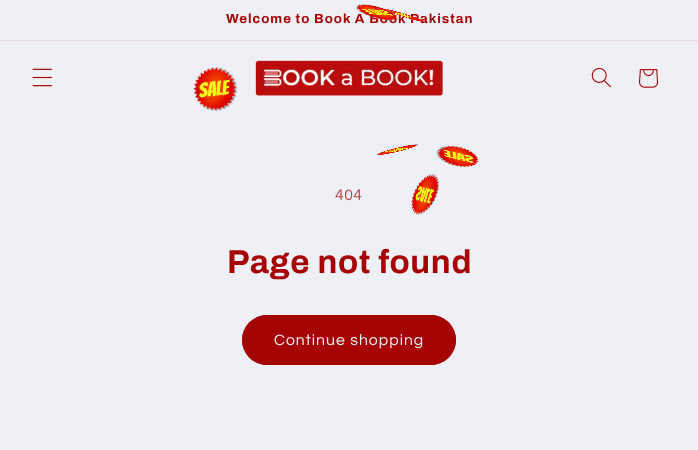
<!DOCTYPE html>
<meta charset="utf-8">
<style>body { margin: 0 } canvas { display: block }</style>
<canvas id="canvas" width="698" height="450"></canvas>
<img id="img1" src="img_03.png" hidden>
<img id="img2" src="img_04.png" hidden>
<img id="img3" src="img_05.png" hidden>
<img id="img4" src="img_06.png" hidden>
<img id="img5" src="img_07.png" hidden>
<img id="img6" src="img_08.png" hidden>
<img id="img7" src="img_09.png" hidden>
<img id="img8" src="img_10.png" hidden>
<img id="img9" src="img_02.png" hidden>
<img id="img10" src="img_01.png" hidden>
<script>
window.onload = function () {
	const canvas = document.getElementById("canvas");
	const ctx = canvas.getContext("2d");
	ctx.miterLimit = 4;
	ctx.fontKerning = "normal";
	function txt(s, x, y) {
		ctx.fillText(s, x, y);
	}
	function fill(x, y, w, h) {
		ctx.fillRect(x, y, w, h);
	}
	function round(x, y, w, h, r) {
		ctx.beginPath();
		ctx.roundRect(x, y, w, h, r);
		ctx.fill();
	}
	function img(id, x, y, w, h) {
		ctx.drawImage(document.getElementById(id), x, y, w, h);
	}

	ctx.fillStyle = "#EFF0F5";
	fill(0, 0, 698, 450);
	img("img1", 193, 67, 45, 45);
	img("img2", 375, 144, 43, 12);
	img("img3", 436, 145, 43, 23);
	img("img4", 411, 173, 29, 42);
	ctx.fillStyle = "#E9DDE2";
	fill(0, 40, 698, 1);
	img("img5", 32, 68, 20, 19);
	img("img6", 255, 60, 188, 36);
	img("img7", 591, 67, 20, 21);
	img("img8", 639, 69, 20, 19);
	ctx.fillStyle = "#A60404";
	round(242, 315, 214, 50, 25);
	ctx.beginPath();
	ctx.roundRect(242.5, 315.5, 213, 49, 24.5);
	ctx.strokeStyle = "#A60404";
	ctx.stroke();
	ctx.letterSpacing = "1.05px";
	ctx.font = "bold 13.25px Archivo";
	txt("Welcome to Book A Book Pakistan", 226, 23);
	img("img9", 383, 8, 42, 14);
	img("img10", 356, 4, 43, 17);
	ctx.letterSpacing = "0.5px";
	ctx.font = "15.75px Questrial";
	ctx.fillStyle = "#B83F40";
	txt("404", 335, 200);
	ctx.letterSpacing = "0.7px";
	ctx.font = "bold 33px Archivo";
	ctx.fillStyle = "#A60404";
	txt("Page not found", 227, 273);
	ctx.letterSpacing = "1.05px";
	ctx.font = "15.75px Questrial";
	ctx.fillStyle = "#EFF0F5";
	txt("Continue shopping", 274, 345);
};
</script>
